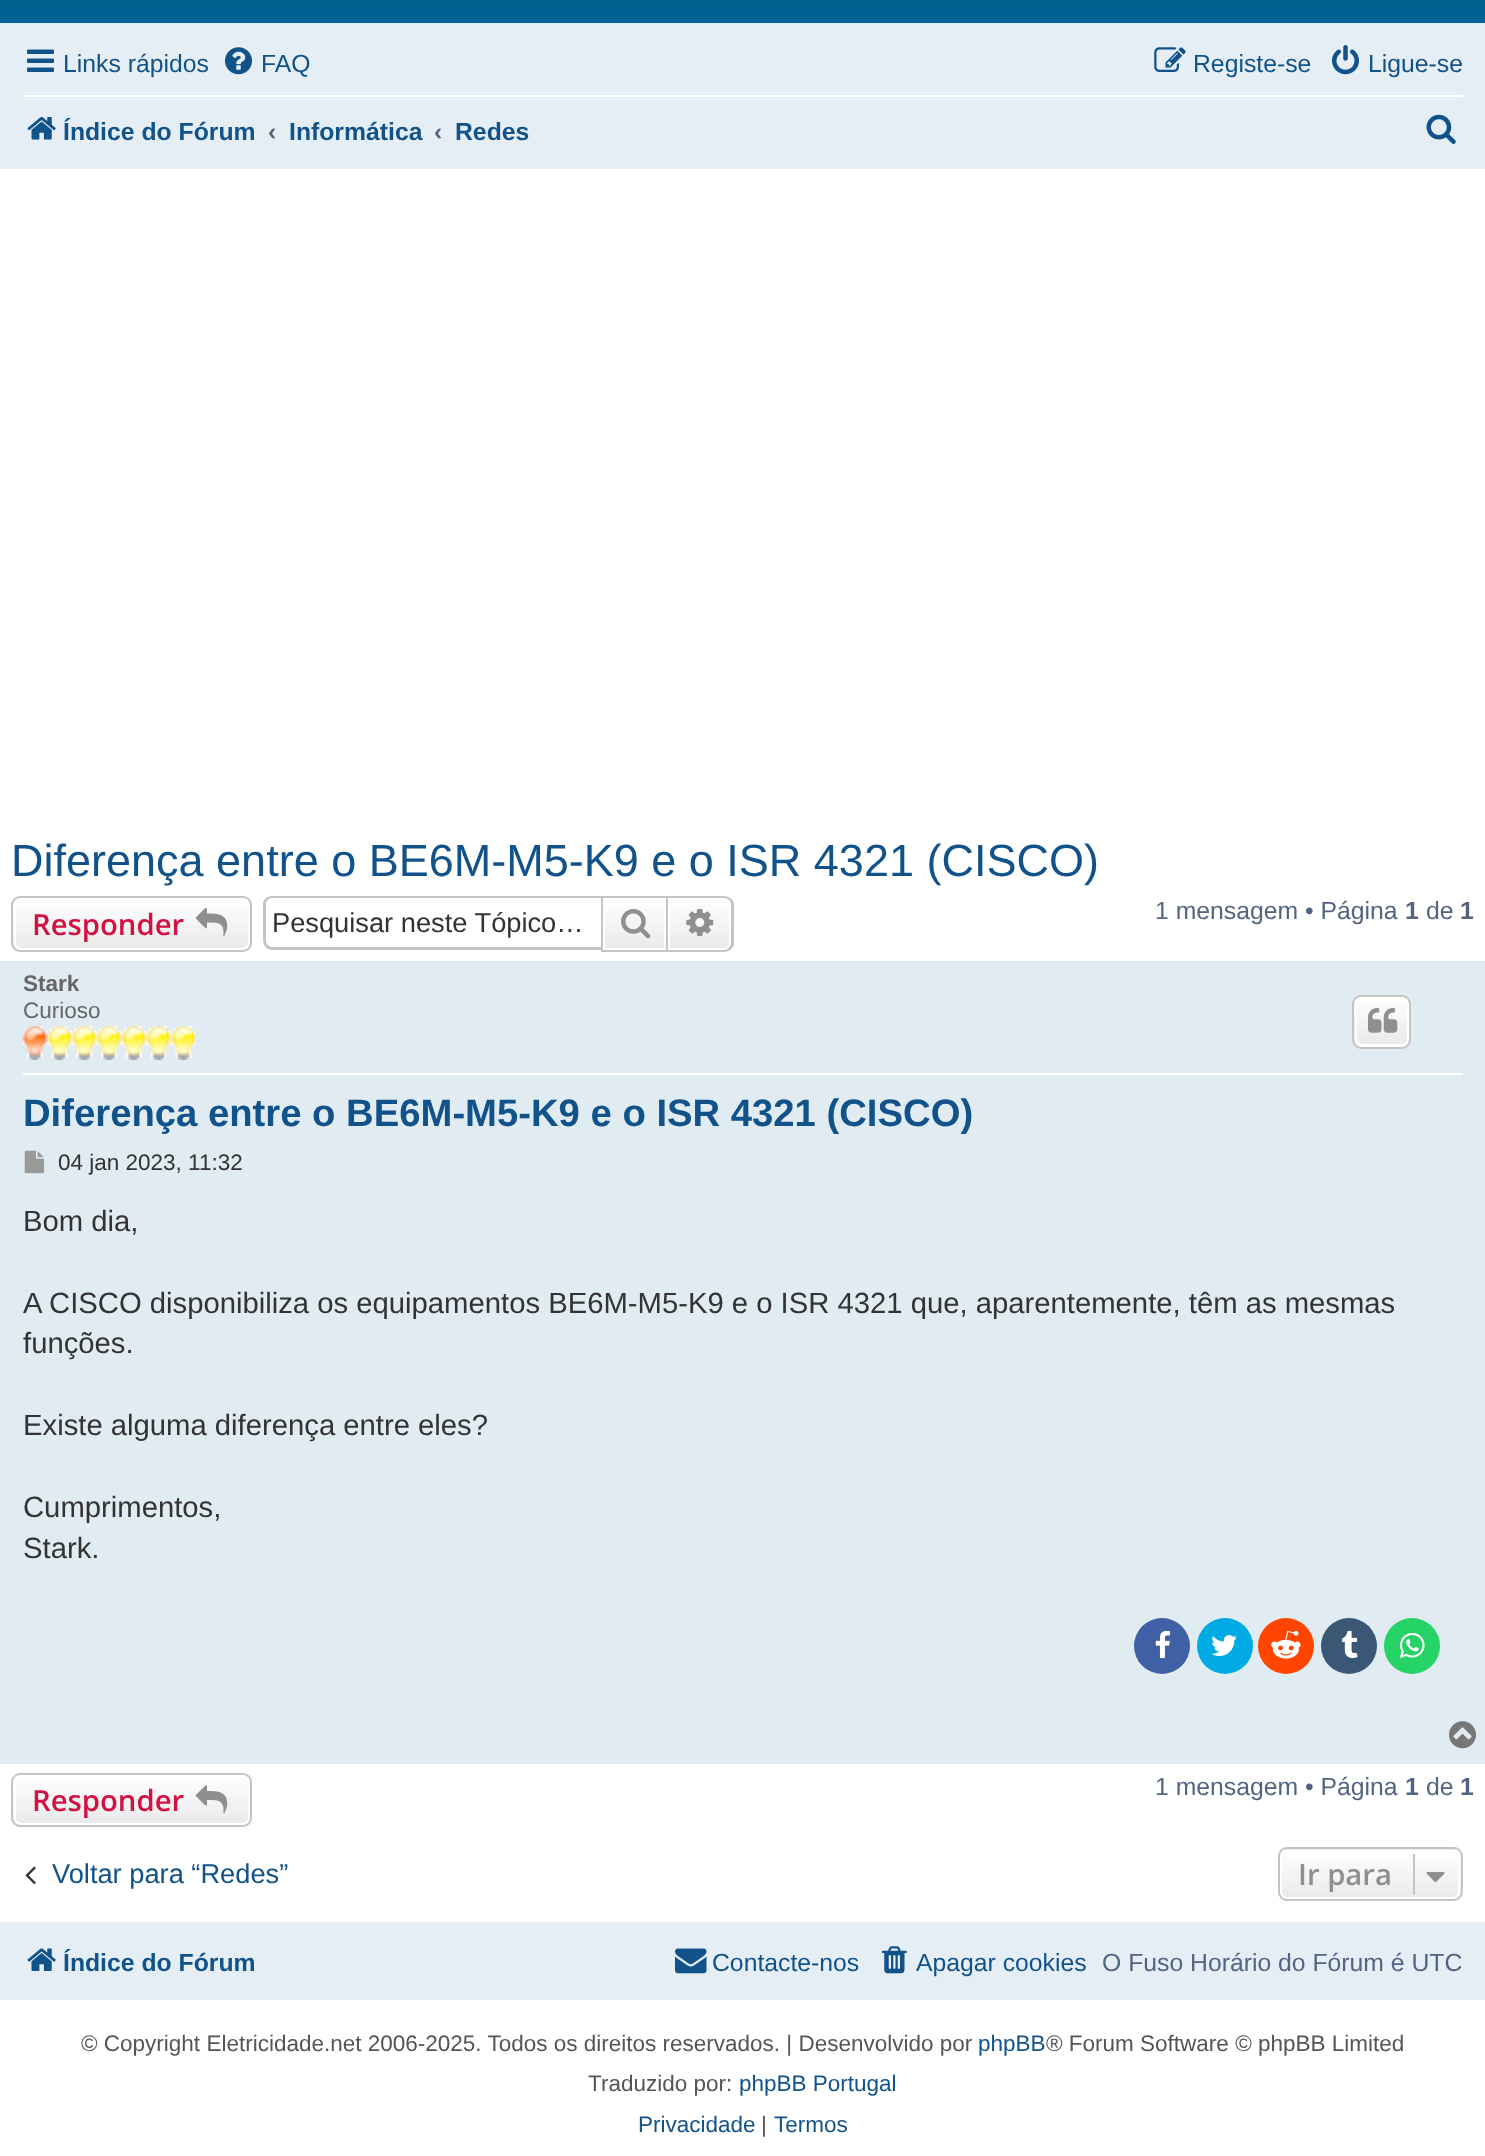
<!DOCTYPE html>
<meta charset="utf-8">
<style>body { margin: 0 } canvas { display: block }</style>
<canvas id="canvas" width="1485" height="2156"></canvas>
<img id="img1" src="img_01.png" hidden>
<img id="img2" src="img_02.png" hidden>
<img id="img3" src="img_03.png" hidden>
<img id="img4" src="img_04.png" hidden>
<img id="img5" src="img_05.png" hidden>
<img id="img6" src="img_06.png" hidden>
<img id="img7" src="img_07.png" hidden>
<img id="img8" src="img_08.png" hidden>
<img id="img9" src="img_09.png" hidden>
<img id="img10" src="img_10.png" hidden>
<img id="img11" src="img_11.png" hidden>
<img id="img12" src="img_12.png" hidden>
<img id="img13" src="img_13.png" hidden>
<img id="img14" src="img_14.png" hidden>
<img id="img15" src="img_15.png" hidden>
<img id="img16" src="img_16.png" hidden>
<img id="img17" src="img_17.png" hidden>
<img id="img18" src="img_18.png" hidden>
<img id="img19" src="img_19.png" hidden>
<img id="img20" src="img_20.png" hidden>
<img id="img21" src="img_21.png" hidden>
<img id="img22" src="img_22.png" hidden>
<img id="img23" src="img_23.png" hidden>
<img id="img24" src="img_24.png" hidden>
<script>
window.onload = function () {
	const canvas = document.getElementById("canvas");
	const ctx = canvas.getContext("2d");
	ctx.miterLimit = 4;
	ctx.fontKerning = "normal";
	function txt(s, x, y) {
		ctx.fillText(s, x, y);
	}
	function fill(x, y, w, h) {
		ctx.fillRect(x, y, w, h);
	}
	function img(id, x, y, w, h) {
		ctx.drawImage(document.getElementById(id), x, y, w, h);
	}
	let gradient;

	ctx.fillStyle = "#FFFFFF";
	fill(0, 0, 1485, 2156);
	gradient = ctx.createLinearGradient(743, -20, 743, 187);
	gradient.addColorStop(0, "#003F5E");
	gradient.addColorStop(0.02, "#005C8A");
	gradient.addColorStop(1, "#0084C4");
	ctx.fillStyle = gradient;
	fill(0, 0, 1485, 23);
	ctx.fillStyle = "#E5EEF5";
	fill(0, 23, 1485, 146);
	img("img1", 27, 49, 27, 23);
	img("img2", 225, 47, 27, 28);
	img("img3", 1154, 47, 32, 25);
	img("img4", 1332, 45, 27, 30);
	ctx.fillStyle = "#FFFFFF";
	fill(23, 95, 1440, 2);
	img("img5", 27, 117, 29, 23);
	img("img6", 1426, 114, 30, 30);
	ctx.save();
	ctx.beginPath();
	ctx.roundRect(11, 896, 241, 56, 9);
	ctx.clip();
	gradient = ctx.createLinearGradient(132, 898, 132, 950);
	gradient.addColorStop(0, "#FFFFFF");
	gradient.addColorStop(1, "#E9E9E9");
	ctx.fillStyle = gradient;
	fill(11, 898, 241, 52);
	ctx.restore();
	ctx.beginPath();
	ctx.roundRect(15, 899, 234, 50, 6);
	ctx.strokeStyle = "#FFFFFF";
	ctx.lineWidth = 2;
	ctx.stroke();
	ctx.beginPath();
	ctx.roundRect(12, 897, 239, 54, 8);
	ctx.strokeStyle = "#C7C3BF";
	ctx.stroke();
	img("img7", 195, 907, 33, 29);
	ctx.fillStyle = "#C7C3BF";
	ctx.beginPath();
	ctx.moveTo(272, 896);
	ctx.lineTo(601, 896);
	ctx.lineTo(601, 950);
	ctx.lineTo(272, 950);
	ctx.bezierCurveTo(267, 950, 263, 945, 263, 940);
	ctx.lineTo(263, 904);
	ctx.bezierCurveTo(263, 900, 267, 896, 272, 896);
	ctx.closePath();
	ctx.moveTo(272, 898);
	ctx.lineTo(601, 898);
	ctx.lineTo(601, 947);
	ctx.lineTo(272, 947);
	ctx.bezierCurveTo(269, 947, 266, 944, 266, 940);
	ctx.lineTo(266, 904);
	ctx.bezierCurveTo(266, 901, 269, 898, 272, 898);
	ctx.closePath();
	ctx.fill("evenodd");
	gradient = ctx.createLinearGradient(635, 898, 635, 950);
	gradient.addColorStop(0, "#FFFFFF");
	gradient.addColorStop(1, "#E9E9E9");
	ctx.fillStyle = gradient;
	fill(605, 904, 59, 44);
	ctx.strokeRect(602, 897, 65, 54);
	img("img8", 621, 909, 30, 30);
	gradient = ctx.createLinearGradient(700, 898, 700, 950);
	gradient.addColorStop(0, "#FFFFFF");
	gradient.addColorStop(1, "#E9E9E9");
	ctx.fillStyle = gradient;
	ctx.beginPath();
	ctx.roundRect(669, 899, 61, 50, [0, 6, 6, 0]);
	ctx.fill();
	ctx.strokeStyle = "#FFFFFF";
	ctx.stroke();
	ctx.fillStyle = "#C7C3BF";
	ctx.beginPath();
	ctx.moveTo(668, 896);
	ctx.lineTo(724, 896);
	ctx.bezierCurveTo(729, 896, 734, 900, 734, 904);
	ctx.lineTo(734, 943);
	ctx.bezierCurveTo(734, 948, 729, 952, 724, 952);
	ctx.lineTo(668, 952);
	ctx.closePath();
	ctx.moveTo(668, 898);
	ctx.lineTo(724, 898);
	ctx.bezierCurveTo(728, 898, 731, 901, 731, 904);
	ctx.lineTo(731, 943);
	ctx.bezierCurveTo(731, 946, 728, 950, 724, 950);
	ctx.lineTo(668, 950);
	ctx.closePath();
	ctx.fill("evenodd");
	img("img9", 686, 909, 28, 27);
	ctx.fillStyle = "#E1EBF2";
	fill(0, 961, 1485, 803);
	ctx.fillStyle = "#FFFFFF";
	fill(23, 1073, 1440, 2);
	img("img10", 22, 1026, 174, 34);
	ctx.save();
	ctx.beginPath();
	ctx.roundRect(1352, 995, 59, 54, 9);
	ctx.clip();
	gradient = ctx.createLinearGradient(1382, 997, 1382, 1046);
	gradient.addColorStop(0, "#FFFFFF");
	gradient.addColorStop(1, "#E9E9E9");
	ctx.fillStyle = gradient;
	fill(1352, 997, 59, 49);
	gradient = ctx.createLinearGradient(1382, 1046, 1382, 1096);
	gradient.addColorStop(0, "#FFFFFF");
	gradient.addColorStop(1, "#E9E9E9");
	ctx.fillStyle = gradient;
	fill(1352, 1046, 59, 3);
	ctx.restore();
	ctx.beginPath();
	ctx.roundRect(1356, 998, 52, 47, 6);
	ctx.stroke();
	ctx.beginPath();
	ctx.roundRect(1353, 996, 57, 52, 8);
	ctx.strokeStyle = "#C7C3BF";
	ctx.stroke();
	img("img11", 1368, 1008, 30, 25);
	img("img12", 24, 1150, 20, 24);
	ctx.fillStyle = "#4060A5";
	ctx.beginPath();
	ctx.arc(1162, 1646, 28, 0, Math.PI * 2);
	ctx.fill();
	img("img13", 1155, 1630, 15, 29);
	ctx.fillStyle = "#00ABE3";
	ctx.beginPath();
	ctx.arc(1225, 1646, 28, 0, Math.PI * 2);
	ctx.fill();
	img("img14", 1211, 1635, 26, 21);
	ctx.fillStyle = "#FF4500";
	ctx.beginPath();
	ctx.arc(1286, 1646, 28, 0, Math.PI * 2);
	ctx.fill();
	img("img15", 1271, 1631, 30, 28);
	ctx.fillStyle = "#3A5876";
	ctx.beginPath();
	ctx.arc(1349, 1646, 28, 0, Math.PI * 2);
	ctx.fill();
	img("img16", 1342, 1630, 16, 29);
	ctx.fillStyle = "#25D366";
	ctx.beginPath();
	ctx.arc(1412, 1646, 28, 0, Math.PI * 2);
	ctx.fill();
	img("img17", 1399, 1632, 26, 27);
	img("img18", 1449, 1721, 27, 28);
	ctx.save();
	ctx.beginPath();
	ctx.roundRect(11, 1773, 241, 54, 9);
	ctx.clip();
	gradient = ctx.createLinearGradient(132, 1775, 132, 1825);
	gradient.addColorStop(0, "#FFFFFF");
	gradient.addColorStop(1, "#E9E9E9");
	ctx.fillStyle = gradient;
	fill(11, 1775, 241, 50);
	ctx.restore();
	ctx.beginPath();
	ctx.roundRect(15, 1776, 234, 48, 6);
	ctx.strokeStyle = "#FFFFFF";
	ctx.stroke();
	ctx.beginPath();
	ctx.roundRect(12, 1774, 239, 52, 8);
	ctx.strokeStyle = "#C7C3BF";
	ctx.stroke();
	img("img19", 195, 1785, 33, 29);
	img("img20", 25, 1866, 11, 19);
	ctx.save();
	ctx.beginPath();
	ctx.roundRect(1278, 1847, 185, 54, 9);
	ctx.clip();
	gradient = ctx.createLinearGradient(1370, 1800, 1370, 1850);
	gradient.addColorStop(0, "#FFFFFF");
	gradient.addColorStop(1, "#E9E9E9");
	ctx.fillStyle = gradient;
	fill(1278, 1847, 185, 3);
	gradient = ctx.createLinearGradient(1370, 1850, 1370, 1899);
	gradient.addColorStop(0, "#FFFFFF");
	gradient.addColorStop(1, "#E9E9E9");
	ctx.fillStyle = gradient;
	fill(1278, 1850, 185, 49);
	ctx.restore();
	ctx.beginPath();
	ctx.roundRect(1281, 1851, 178, 47, 6);
	ctx.strokeStyle = "#FFFFFF";
	ctx.stroke();
	ctx.beginPath();
	ctx.roundRect(1279, 1848, 183, 52, 8);
	ctx.strokeStyle = "#C7C3BF";
	ctx.stroke();
	ctx.fillStyle = "#C7C3BF";
	fill(1413, 1854, 2, 41);
	img("img21", 1426, 1872, 19, 11);
	ctx.fillStyle = "#E5EEF5";
	fill(0, 1922, 1485, 78);
	img("img22", 27, 1948, 29, 23);
	img("img23", 675, 1948, 32, 26);
	img("img24", 882, 1946, 25, 28);
	ctx.font = "24.75px Liberation Sans";
	ctx.fillStyle = "#105289";
	txt("Links rápidos", 63, 72);
	txt("FAQ", 261, 72);
	txt("Registe-se", 1193, 72);
	txt("Ligue-se", 1368, 72);
	ctx.font = "bold 24.75px Liberation Sans";
	txt("Índice do Fórum", 63, 140);
	ctx.fillStyle = "#536482";
	txt("‹", 268, 140);
	ctx.fillStyle = "#105289";
	txt("Informática", 289, 140);
	ctx.fillStyle = "#536482";
	txt("‹", 434, 140);
	ctx.fillStyle = "#105289";
	txt("Redes", 455, 140);
	ctx.font = "45px Liberation Sans";
	txt("Diferença entre o BE6M-M5-K9 e o ISR 4321 (CISCO)", 11, 876);
	ctx.font = "600 29.25px Open Sans";
	ctx.fillStyle = "#D31141";
	txt("Responder", 32, 935);
	ctx.font = "27.25px Liberation Sans";
	ctx.fillStyle = "#333333";
	txt("Pesquisar neste Tópico…", 272, 932);
	ctx.font = "24.75px Liberation Sans";
	ctx.fillStyle = "#536482";
	txt("1 mensagem • Página", 1155, 919);
	ctx.font = "bold 24.75px Liberation Sans";
	txt("1", 1405, 919);
	ctx.font = "24.75px Liberation Sans";
	txt("de", 1426, 919);
	ctx.font = "bold 24.75px Liberation Sans";
	txt("1", 1460, 919);
	ctx.font = "bold 22.5px Liberation Sans";
	ctx.fillStyle = "#666666";
	txt("Stark", 23, 991);
	ctx.font = "22.5px Liberation Sans";
	txt("Curioso", 23, 1018);
	ctx.font = "bold 38.25px Liberation Sans";
	ctx.fillStyle = "#105289";
	txt("Diferença entre o BE6M-M5-K9 e o ISR 4321 (CISCO)", 23, 1126);
	ctx.font = "22.5px Liberation Sans";
	ctx.fillStyle = "#333333";
	txt("04 jan 2023, 11:32", 58, 1170);
	ctx.font = "29.25px Liberation Sans";
	txt("Bom dia,", 23, 1231);
	txt("A CISCO disponibiliza os equipamentos BE6M-M5-K9 e o ISR 4321 que, aparentemente, têm as mesmas", 23, 1313);
	txt("funções.", 23, 1353);
	txt("Existe alguma diferença entre eles?", 23, 1435);
	txt("Cumprimentos,", 23, 1517);
	txt("Stark.", 23, 1558);
	ctx.font = "600 29.25px Open Sans";
	ctx.fillStyle = "#D31141";
	txt("Responder", 32, 1811);
	ctx.font = "24.75px Liberation Sans";
	ctx.fillStyle = "#536482";
	txt("1 mensagem • Página", 1155, 1795);
	ctx.font = "bold 24.75px Liberation Sans";
	txt("1", 1405, 1795);
	ctx.font = "24.75px Liberation Sans";
	txt("de", 1426, 1795);
	ctx.font = "bold 24.75px Liberation Sans";
	txt("1", 1460, 1795);
	ctx.font = "27.25px Liberation Sans";
	ctx.fillStyle = "#105289";
	txt("Voltar para “Redes”", 52, 1883);
	ctx.font = "600 29.25px Open Sans";
	ctx.fillStyle = "#8F8F8F";
	txt("Ir para", 1298, 1885);
	ctx.font = "bold 24.75px Liberation Sans";
	ctx.fillStyle = "#105289";
	txt("Índice do Fórum", 63, 1971);
	ctx.font = "24.75px Liberation Sans";
	txt("Contacte-nos", 712, 1971);
	txt("Apagar cookies", 916, 1971);
	ctx.fillStyle = "#536482";
	txt("O Fuso Horário do Fórum é UTC", 1102, 1971);
	ctx.font = "22.5px Liberation Sans";
	ctx.fillStyle = "#555555";
	txt("© Copyright Eletricidade.net 2006-2025. Todos os direitos reservados. | Desenvolvido por", 81, 2051);
	ctx.fillStyle = "#105289";
	txt("phpBB", 978, 2051);
	ctx.fillStyle = "#555555";
	txt("® Forum Software © phpBB Limited", 1046, 2051);
	txt("Traduzido por:", 588, 2091);
	ctx.fillStyle = "#105289";
	txt("phpBB Portugal", 739, 2091);
	txt("Privacidade", 638, 2132);
	ctx.fillStyle = "#555555";
	txt("|", 761, 2132);
	ctx.fillStyle = "#105289";
	txt("Termos", 774, 2132);
};
</script>
